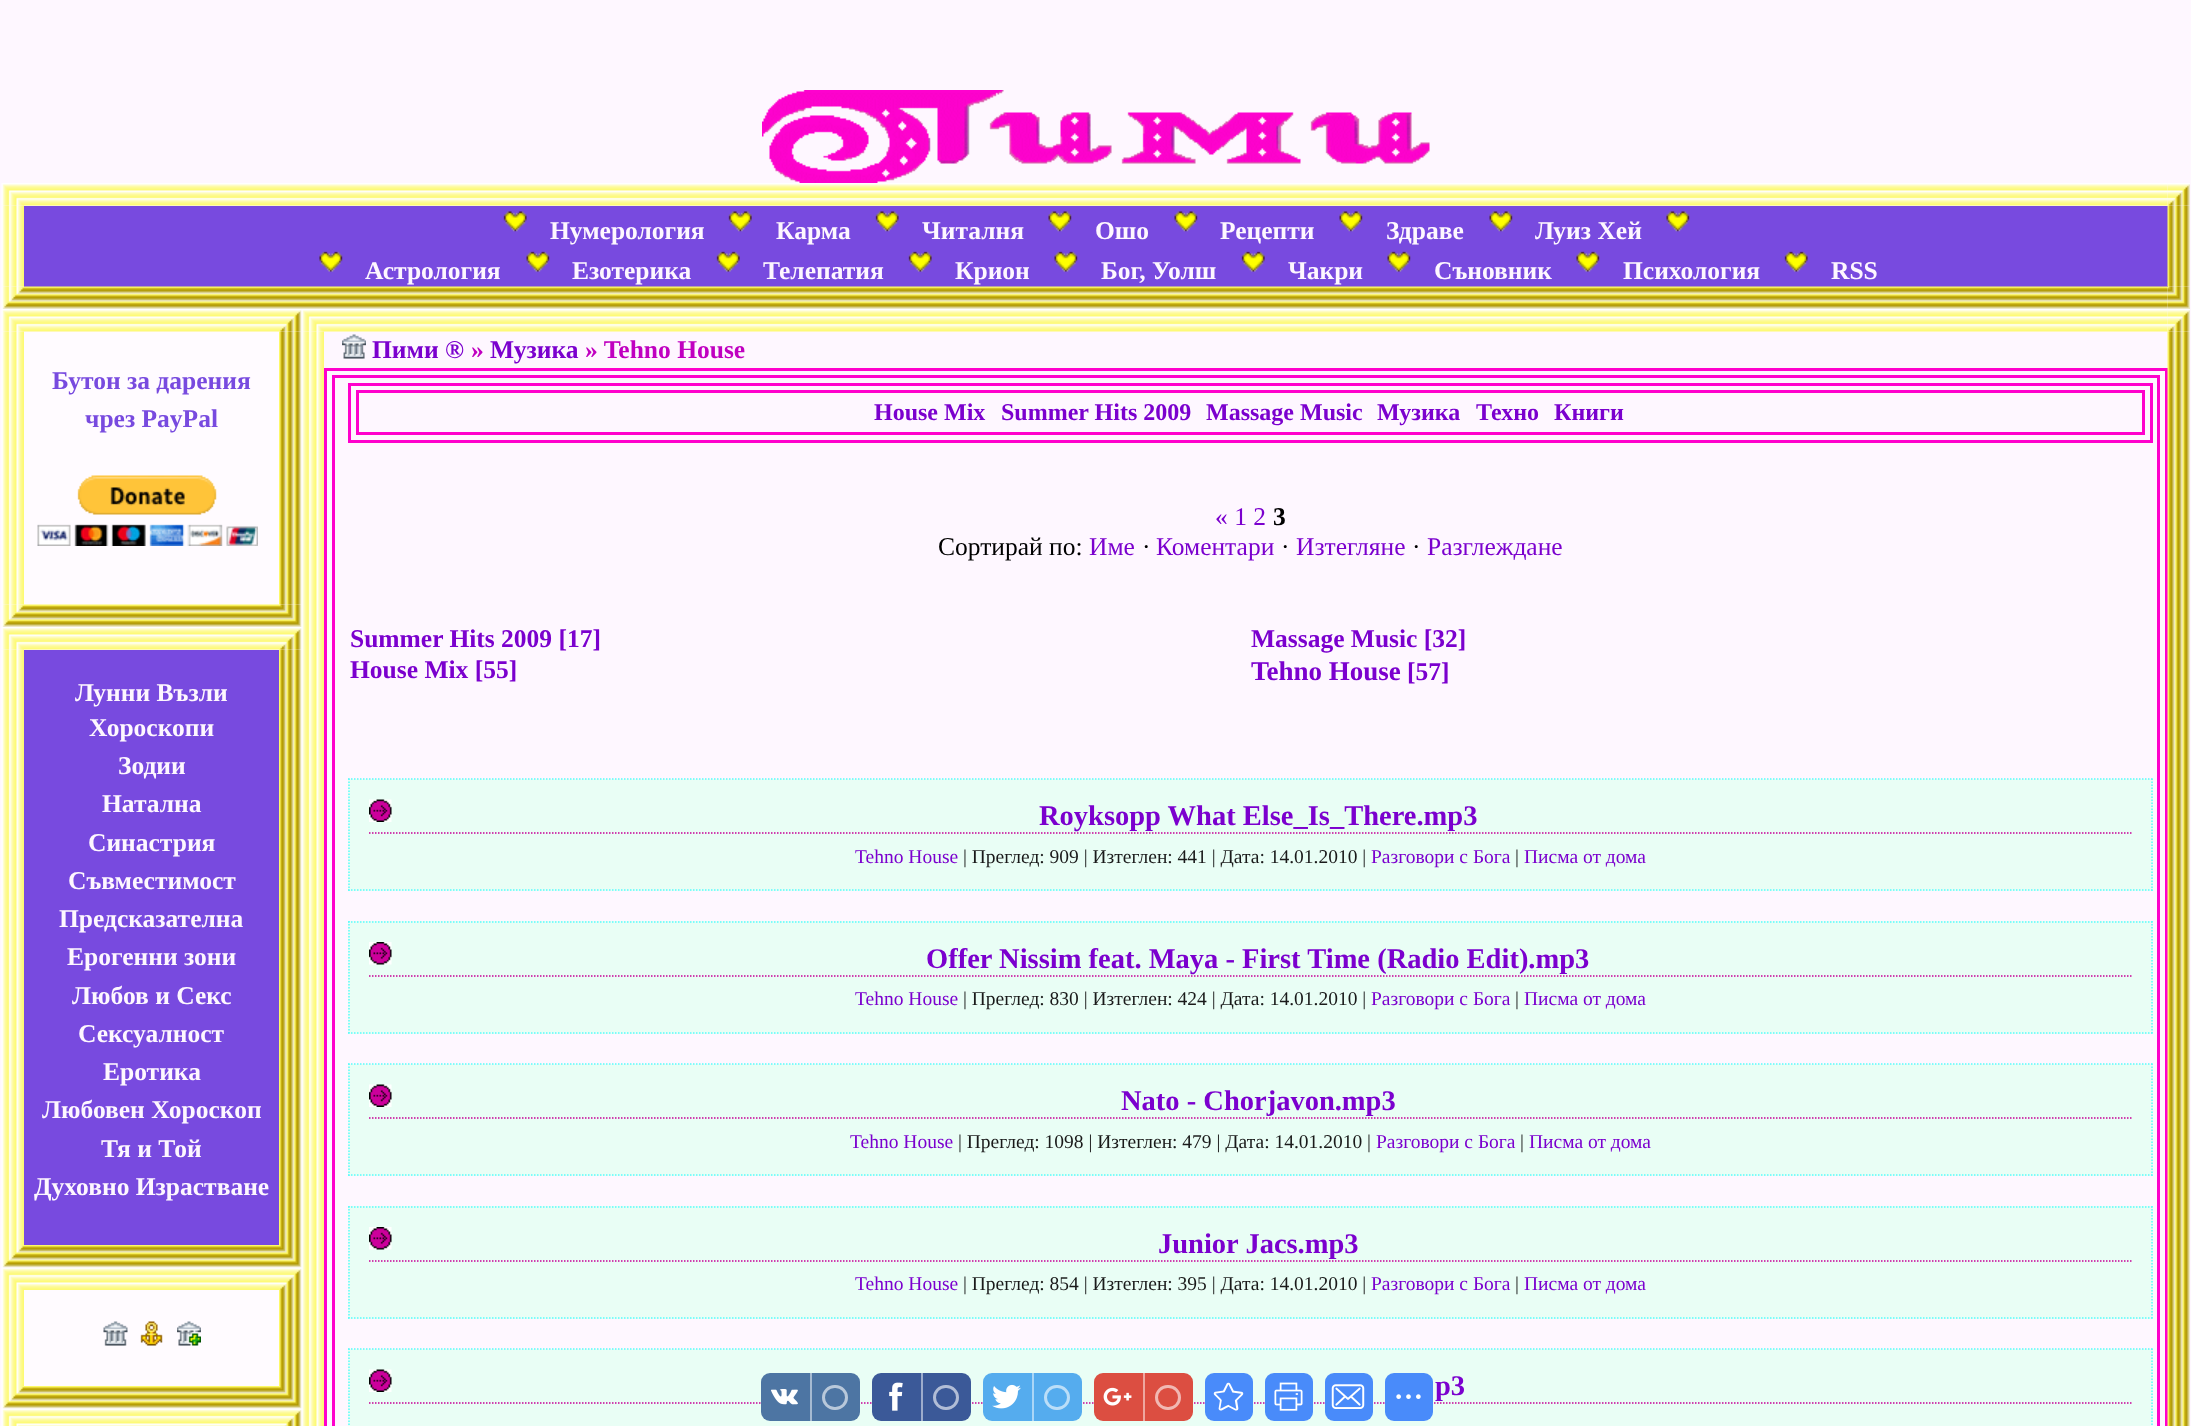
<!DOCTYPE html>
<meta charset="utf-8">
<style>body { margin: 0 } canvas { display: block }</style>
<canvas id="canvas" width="2191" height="1426"></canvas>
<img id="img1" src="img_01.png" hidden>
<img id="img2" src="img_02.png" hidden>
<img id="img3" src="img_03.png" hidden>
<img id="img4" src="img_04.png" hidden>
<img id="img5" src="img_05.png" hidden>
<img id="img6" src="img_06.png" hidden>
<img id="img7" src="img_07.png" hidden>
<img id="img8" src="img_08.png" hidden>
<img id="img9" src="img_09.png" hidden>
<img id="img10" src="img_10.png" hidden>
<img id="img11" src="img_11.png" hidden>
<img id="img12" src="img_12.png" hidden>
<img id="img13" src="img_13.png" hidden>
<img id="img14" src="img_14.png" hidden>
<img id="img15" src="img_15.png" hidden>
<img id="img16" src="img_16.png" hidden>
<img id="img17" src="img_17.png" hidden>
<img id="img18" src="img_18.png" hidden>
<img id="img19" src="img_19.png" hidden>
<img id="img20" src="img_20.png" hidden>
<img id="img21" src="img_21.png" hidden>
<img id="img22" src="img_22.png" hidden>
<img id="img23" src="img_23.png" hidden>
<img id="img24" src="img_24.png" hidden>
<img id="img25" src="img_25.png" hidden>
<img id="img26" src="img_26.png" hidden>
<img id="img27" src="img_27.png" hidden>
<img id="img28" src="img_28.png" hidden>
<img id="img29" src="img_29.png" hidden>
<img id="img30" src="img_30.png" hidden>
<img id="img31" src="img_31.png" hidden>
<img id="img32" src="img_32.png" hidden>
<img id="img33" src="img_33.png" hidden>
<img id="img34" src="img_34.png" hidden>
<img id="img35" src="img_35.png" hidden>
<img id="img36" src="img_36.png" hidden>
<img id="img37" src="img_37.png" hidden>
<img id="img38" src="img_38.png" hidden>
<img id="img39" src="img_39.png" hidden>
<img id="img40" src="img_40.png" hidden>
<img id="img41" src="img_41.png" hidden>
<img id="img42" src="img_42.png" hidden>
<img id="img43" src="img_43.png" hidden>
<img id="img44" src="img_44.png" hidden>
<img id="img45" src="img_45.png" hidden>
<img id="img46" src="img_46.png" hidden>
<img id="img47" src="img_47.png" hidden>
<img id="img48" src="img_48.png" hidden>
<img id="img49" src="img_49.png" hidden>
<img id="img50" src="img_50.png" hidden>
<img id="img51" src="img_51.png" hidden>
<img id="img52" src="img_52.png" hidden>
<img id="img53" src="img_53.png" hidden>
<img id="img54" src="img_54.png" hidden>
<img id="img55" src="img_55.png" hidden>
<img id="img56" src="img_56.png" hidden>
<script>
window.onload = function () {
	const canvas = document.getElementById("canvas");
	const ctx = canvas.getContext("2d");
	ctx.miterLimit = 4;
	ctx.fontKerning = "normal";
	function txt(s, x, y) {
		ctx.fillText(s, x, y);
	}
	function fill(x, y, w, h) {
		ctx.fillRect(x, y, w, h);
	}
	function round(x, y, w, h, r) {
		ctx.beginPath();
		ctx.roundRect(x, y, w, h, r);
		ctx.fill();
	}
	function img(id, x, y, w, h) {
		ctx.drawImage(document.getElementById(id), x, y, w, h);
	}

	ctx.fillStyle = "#FEF7FF";
	fill(0, 0, 2191, 1426);
	img("img1", 762, 90, 668, 93);
	img("img2", 1, 183, 23, 23);
	img("img3", 24, 183, 2144, 23);
	img("img4", 2167, 183, 23, 23);
	img("img5", 1, 205, 23, 82);
	ctx.fillStyle = "#784ADF";
	fill(24, 206, 2144, 81);
	img("img6", 503, 211, 24, 21);
	img("img7", 728, 211, 24, 21);
	img("img8", 875, 211, 24, 21);
	img("img9", 1048, 211, 24, 21);
	img("img9", 1174, 211, 24, 21);
	img("img9", 1339, 211, 24, 21);
	img("img9", 1489, 211, 24, 21);
	img("img10", 1666, 211, 24, 21);
	img("img11", 319, 251, 24, 21);
	img("img12", 526, 251, 24, 21);
	img("img13", 716, 251, 24, 21);
	img("img14", 908, 251, 24, 21);
	img("img12", 1054, 251, 24, 21);
	img("img13", 1241, 251, 24, 21);
	img("img12", 1387, 251, 24, 21);
	img("img11", 1576, 251, 24, 21);
	img("img14", 1784, 251, 24, 21);
	img("img15", 2167, 205, 23, 82);
	img("img16", 1, 286, 23, 23);
	img("img17", 24, 286, 2144, 23);
	img("img18", 2167, 286, 23, 23);
	img("img2", 1, 309, 23, 23);
	img("img19", 24, 309, 255, 23);
	img("img20", 279, 309, 23, 23);
	img("img21", 1, 331, 23, 274);
	ctx.fillStyle = "#FFFBFF";
	fill(24, 332, 255, 273);
	img("img22", 37, 475, 221, 71);
	img("img23", 279, 331, 23, 274);
	img("img16", 1, 604, 23, 23);
	img("img24", 24, 604, 255, 23);
	img("img25", 279, 604, 23, 23);
	img("img2", 1, 627, 23, 23);
	img("img19", 24, 627, 255, 23);
	img("img20", 279, 627, 23, 23);
	img("img26", 1, 649, 23, 596);
	ctx.fillStyle = "#784ADF";
	fill(24, 650, 255, 595);
	img("img27", 279, 649, 23, 596);
	img("img28", 1, 1245, 23, 23);
	img("img29", 24, 1245, 255, 23);
	img("img30", 279, 1245, 23, 23);
	img("img31", 1, 1267, 23, 23);
	img("img32", 24, 1267, 255, 23);
	img("img33", 279, 1267, 23, 23);
	img("img34", 1, 1290, 23, 96);
	ctx.fillStyle = "#FFFBFF";
	fill(24, 1290, 255, 96);
	img("img35", 103, 1321, 25, 25);
	img("img36", 140, 1321, 23, 25);
	img("img37", 177, 1321, 24, 25);
	img("img38", 279, 1290, 23, 96);
	img("img28", 1, 1386, 23, 23);
	img("img29", 24, 1386, 255, 23);
	img("img30", 279, 1386, 23, 23);
	img("img39", 1, 1408, 23, 18);
	img("img40", 24, 1408, 255, 18);
	img("img41", 279, 1408, 23, 18);
	img("img42", 301, 309, 23, 23);
	img("img43", 324, 309, 1844, 23);
	img("img4", 2167, 309, 23, 23);
	img("img44", 301, 331, 23, 1095);
	img("img45", 342, 334, 24, 25);
	ctx.strokeStyle = "#FF00CC";
	ctx.lineWidth = 3;
	ctx.strokeRect(325.5, 369.5, 1841, 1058);
	ctx.strokeRect(333.5, 376.5, 1825, 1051);
	ctx.strokeRect(349.5, 384.5, 1802, 57);
	ctx.strokeRect(357.5, 391.5, 1786, 42);
	ctx.fillStyle = "#E9FEF5";
	fill(348, 779, 1805, 112);
	ctx.beginPath();
	ctx.moveTo(348, 779);
	ctx.lineTo(2152.5, 779);
	ctx.strokeStyle = "#59FBFB";
	ctx.lineWidth = 1.5;
	ctx.setLineDash([1.5, 1.5]);
	ctx.stroke();
	ctx.beginPath();
	ctx.moveTo(2152, 778.5);
	ctx.lineTo(2152, 891);
	ctx.stroke();
	ctx.beginPath();
	ctx.moveTo(348, 890);
	ctx.lineTo(2152.5, 890);
	ctx.stroke();
	ctx.beginPath();
	ctx.moveTo(349, 778.5);
	ctx.lineTo(349, 891);
	ctx.stroke();
	img("img46", 369, 799, 23, 23);
	ctx.beginPath();
	ctx.moveTo(369, 833);
	ctx.lineTo(2131.5, 833);
	ctx.strokeStyle = "#C60096";
	ctx.stroke();
	fill(348, 921, 1805, 113);
	ctx.beginPath();
	ctx.moveTo(348, 922);
	ctx.lineTo(2152.5, 922);
	ctx.strokeStyle = "#59FBFB";
	ctx.stroke();
	ctx.beginPath();
	ctx.moveTo(2152, 921);
	ctx.lineTo(2152, 1033.5);
	ctx.stroke();
	ctx.beginPath();
	ctx.moveTo(348, 1033);
	ctx.lineTo(2152.5, 1033);
	ctx.stroke();
	ctx.beginPath();
	ctx.moveTo(349, 921);
	ctx.lineTo(349, 1033.5);
	ctx.stroke();
	img("img47", 369, 942, 23, 23);
	ctx.beginPath();
	ctx.moveTo(369, 976);
	ctx.lineTo(2131.5, 976);
	ctx.strokeStyle = "#C60096";
	ctx.stroke();
	fill(348, 1064, 1805, 112);
	ctx.beginPath();
	ctx.moveTo(348, 1064);
	ctx.lineTo(2152.5, 1064);
	ctx.strokeStyle = "#59FBFB";
	ctx.stroke();
	ctx.beginPath();
	ctx.moveTo(2152, 1063.5);
	ctx.lineTo(2152, 1176);
	ctx.stroke();
	ctx.beginPath();
	ctx.moveTo(348, 1175);
	ctx.lineTo(2152.5, 1175);
	ctx.stroke();
	ctx.beginPath();
	ctx.moveTo(349, 1063.5);
	ctx.lineTo(349, 1176);
	ctx.stroke();
	img("img46", 369, 1084, 23, 23);
	ctx.beginPath();
	ctx.moveTo(369, 1118);
	ctx.lineTo(2131.5, 1118);
	ctx.strokeStyle = "#C60096";
	ctx.stroke();
	fill(348, 1206, 1805, 113);
	ctx.beginPath();
	ctx.moveTo(348, 1207);
	ctx.lineTo(2152.5, 1207);
	ctx.strokeStyle = "#59FBFB";
	ctx.stroke();
	ctx.beginPath();
	ctx.moveTo(2152, 1206);
	ctx.lineTo(2152, 1318.5);
	ctx.stroke();
	ctx.beginPath();
	ctx.moveTo(348, 1318);
	ctx.lineTo(2152.5, 1318);
	ctx.stroke();
	ctx.beginPath();
	ctx.moveTo(349, 1206);
	ctx.lineTo(349, 1318.5);
	ctx.stroke();
	img("img47", 369, 1227, 23, 23);
	ctx.beginPath();
	ctx.moveTo(369, 1261);
	ctx.lineTo(2131.5, 1261);
	ctx.strokeStyle = "#C60096";
	ctx.stroke();
	fill(348, 1349, 1805, 77);
	ctx.beginPath();
	ctx.moveTo(348, 1349);
	ctx.lineTo(2152.5, 1349);
	ctx.strokeStyle = "#59FBFB";
	ctx.stroke();
	ctx.beginPath();
	ctx.moveTo(2152, 1348.5);
	ctx.lineTo(2152, 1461);
	ctx.stroke();
	ctx.beginPath();
	ctx.moveTo(349, 1348.5);
	ctx.lineTo(349, 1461);
	ctx.stroke();
	img("img46", 369, 1369, 23, 23);
	ctx.beginPath();
	ctx.moveTo(369, 1403);
	ctx.lineTo(2131.5, 1403);
	ctx.strokeStyle = "#C60096";
	ctx.stroke();
	img("img48", 2167, 331, 23, 1095);
	ctx.fillStyle = "#4D75A3";
	round(761, 1373, 99, 48, 9);
	img("img49", 771, 1389, 27, 16);
	ctx.fillStyle = "#A6BAD1";
	fill(810, 1373, 2, 48);
	ctx.beginPath();
	ctx.roundRect(823.5, 1386.5, 23, 22, 11);
	ctx.strokeStyle = "#B8C8DA";
	ctx.lineWidth = 3;
	ctx.setLineDash([]);
	ctx.stroke();
	ctx.fillStyle = "#3B5998";
	round(872, 1373, 99, 48, 9);
	img("img50", 889, 1382, 14, 29);
	ctx.fillStyle = "#9DACCC";
	fill(921, 1373, 2, 48);
	ctx.beginPath();
	ctx.roundRect(934.5, 1386.5, 23, 22, 11);
	ctx.strokeStyle = "#B1BDD6";
	ctx.stroke();
	ctx.fillStyle = "#55ACEE";
	round(983, 1373, 99, 48, 9);
	img("img51", 992, 1384, 29, 25);
	ctx.fillStyle = "#AAD6F7";
	fill(1032, 1373, 2, 48);
	ctx.beginPath();
	ctx.roundRect(1045.5, 1386.5, 23, 22, 11);
	ctx.strokeStyle = "#BBDEF8";
	ctx.stroke();
	ctx.fillStyle = "#DC4E41";
	round(1094, 1373, 99, 48, 9);
	img("img52", 1103, 1387, 29, 19);
	ctx.fillStyle = "#EEA7A0";
	fill(1143, 1373, 2, 48);
	ctx.beginPath();
	ctx.roundRect(1156.5, 1386.5, 23, 22, 11);
	ctx.strokeStyle = "#F1B8B3";
	ctx.stroke();
	ctx.fillStyle = "#498BFA";
	round(1205, 1373, 48, 48, 9);
	img("img53", 1213, 1382, 31, 29);
	round(1265, 1373, 48, 48, 9);
	img("img54", 1274, 1382, 29, 29);
	round(1325, 1373, 48, 48, 9);
	img("img55", 1331, 1384, 34, 25);
	round(1385, 1373, 48, 48, 9);
	img("img56", 1396, 1394, 25, 5);
	ctx.font = "bold 25.5px Liberation Serif";
	ctx.fillStyle = "#FEF7FF";
	txt("Нумерология", 550, 239);
	txt("Карма", 776, 239);
	txt("Читалня", 922, 239);
	txt("Ошо", 1095, 239);
	txt("Рецепти", 1220, 239);
	txt("Здраве", 1386, 239);
	txt("Луиз Хей", 1535, 239);
	txt("Астрология", 365, 279);
	txt("Езотерика", 572, 279);
	txt("Телепатия", 763, 279);
	txt("Крион", 955, 279);
	txt("Бог, Уолш", 1101, 279);
	txt("Чакри", 1288, 279);
	txt("Съновник", 1434, 279);
	txt("Психология", 1623, 279);
	txt("RSS", 1831, 279);
	ctx.fillStyle = "#784ADF";
	txt("Бутон за дарения", 52, 389);
	txt("чрез PayPal", 85, 427);
	ctx.fillStyle = "#FEF7FF";
	txt("Лунни Възли", 75, 701);
	txt("Хороскопи", 89, 736);
	txt("Зодии", 118, 774);
	txt("Натална", 102, 812);
	txt("Синастрия", 88, 851);
	txt("Съвместимост", 68, 889);
	txt("Предсказателна", 59, 927);
	txt("Ерогенни зони", 67, 965);
	txt("Любов и Секс", 72, 1004);
	txt("Сексуалност", 78, 1042);
	txt("Еротика", 103, 1080);
	txt("Любовен Хороскоп", 42, 1118);
	txt("Тя и Той", 101, 1157);
	txt("Духовно Израстване", 34, 1195);
	ctx.fillStyle = "#7B00CE";
	txt("Пими ®", 372, 358);
	ctx.fillStyle = "#C000C0";
	txt("»", 471, 358);
	ctx.fillStyle = "#7B00CE";
	txt("Музика", 490, 358);
	ctx.fillStyle = "#C000C0";
	txt("» Tehno House", 585, 358);
	ctx.font = "bold 24px Liberation Serif";
	ctx.fillStyle = "#7B00CE";
	txt("House Mix", 874, 420);
	txt("Summer Hits 2009", 1001, 420);
	txt("Massage Music", 1206, 420);
	txt("Музика", 1377, 420);
	txt("Техно", 1476, 420);
	txt("Книги", 1554, 420);
	ctx.font = "25.5px Liberation Serif";
	txt("« 1 2", 1215, 525);
	ctx.font = "bold 25.5px Liberation Serif";
	ctx.fillStyle = "#000000";
	txt("3", 1273, 525);
	ctx.font = "25.5px Liberation Serif";
	txt("Сортирай по:", 938, 555);
	ctx.fillStyle = "#7B00CE";
	txt("Име", 1089, 555);
	ctx.fillStyle = "#000000";
	txt("·", 1142, 555);
	ctx.fillStyle = "#7B00CE";
	txt("Коментари", 1156, 555);
	ctx.fillStyle = "#000000";
	txt("·", 1281, 555);
	ctx.fillStyle = "#7B00CE";
	txt("Изтегляне", 1296, 555);
	ctx.fillStyle = "#000000";
	txt("·", 1412, 555);
	ctx.fillStyle = "#7B00CE";
	txt("Разглеждане", 1427, 555);
	ctx.font = "bold 25.5px Liberation Serif";
	txt("Summer Hits 2009 [17]", 350, 647);
	txt("Massage Music [32]", 1251, 647);
	txt("House Mix [55]", 350, 678);
	ctx.font = "bold 27px Liberation Serif";
	txt("Tehno House", 1251, 680);
	ctx.font = "bold 25.5px Liberation Serif";
	txt("[57]", 1407, 680);
	ctx.font = "bold 28.5px Liberation Serif";
	txt("Royksopp What Else_Is_There.mp3", 1039, 825);
	ctx.font = "19.5px Liberation Serif";
	txt("Tehno House", 855, 863);
	ctx.fillStyle = "#1A1A1A";
	txt("| Преглед: 909 | Изтеглен: 441 | Дата: 14.01.2010 |", 963, 863);
	ctx.fillStyle = "#7B00CE";
	txt("Разговори с Бога", 1371, 863);
	ctx.fillStyle = "#1A1A1A";
	txt("|", 1515, 863);
	ctx.fillStyle = "#7B00CE";
	txt("Писма от дома", 1524, 863);
	ctx.font = "bold 28.5px Liberation Serif";
	txt("Offer Nissim feat. Maya - First Time (Radio Edit).mp3", 926, 968);
	ctx.font = "19.5px Liberation Serif";
	txt("Tehno House", 855, 1005);
	ctx.fillStyle = "#1A1A1A";
	txt("| Преглед: 830 | Изтеглен: 424 | Дата: 14.01.2010 |", 963, 1005);
	ctx.fillStyle = "#7B00CE";
	txt("Разговори с Бога", 1371, 1005);
	ctx.fillStyle = "#1A1A1A";
	txt("|", 1515, 1005);
	ctx.fillStyle = "#7B00CE";
	txt("Писма от дома", 1524, 1005);
	ctx.font = "bold 28.5px Liberation Serif";
	txt("Nato - Chorjavon.mp3", 1121, 1110);
	ctx.font = "19.5px Liberation Serif";
	txt("Tehno House", 850, 1148);
	ctx.fillStyle = "#1A1A1A";
	txt("| Преглед: 1098 | Изтеглен: 479 | Дата: 14.01.2010 |", 958, 1148);
	ctx.fillStyle = "#7B00CE";
	txt("Разговори с Бога", 1376, 1148);
	ctx.fillStyle = "#1A1A1A";
	txt("|", 1520, 1148);
	ctx.fillStyle = "#7B00CE";
	txt("Писма от дома", 1529, 1148);
	ctx.font = "bold 28.5px Liberation Serif";
	txt("Junior Jacs.mp3", 1158, 1253);
	ctx.font = "19.5px Liberation Serif";
	txt("Tehno House", 855, 1290);
	ctx.fillStyle = "#1A1A1A";
	txt("| Преглед: 854 | Изтеглен: 395 | Дата: 14.01.2010 |", 963, 1290);
	ctx.fillStyle = "#7B00CE";
	txt("Разговори с Бога", 1371, 1290);
	ctx.fillStyle = "#1A1A1A";
	txt("|", 1515, 1290);
	ctx.fillStyle = "#7B00CE";
	txt("Писма от дома", 1524, 1290);
	ctx.font = "bold 28.5px Liberation Serif";
	txt("p3", 1435, 1395);
};
</script>
